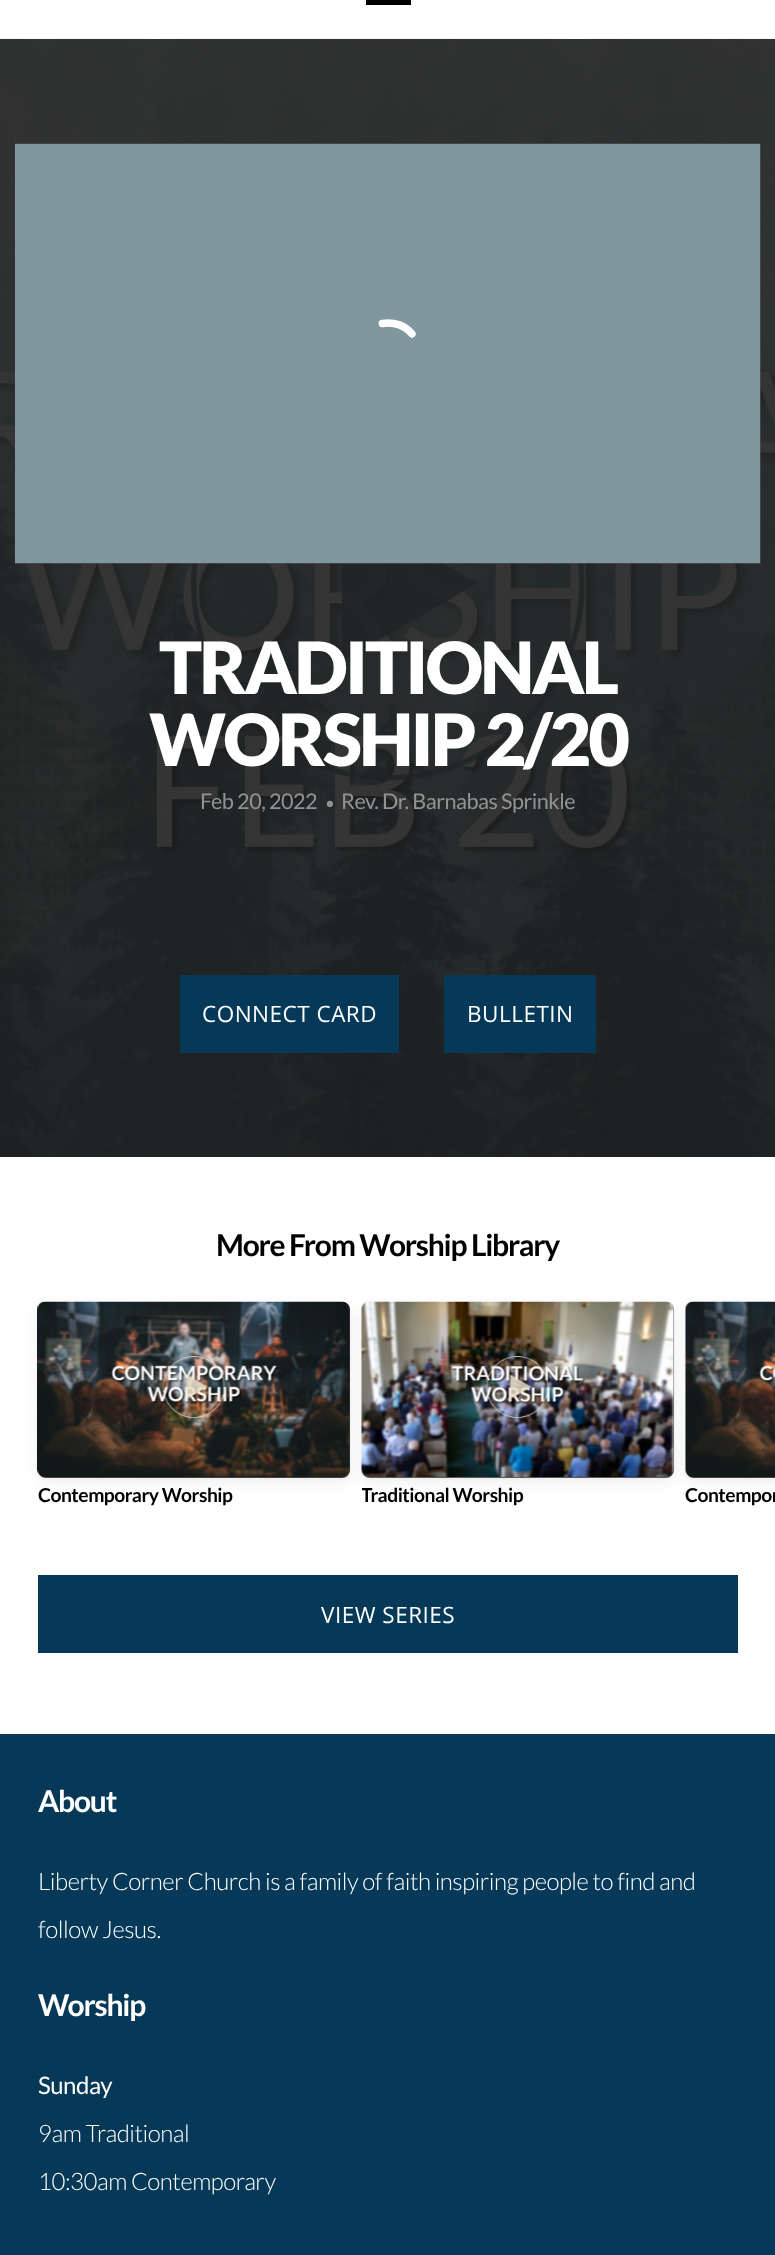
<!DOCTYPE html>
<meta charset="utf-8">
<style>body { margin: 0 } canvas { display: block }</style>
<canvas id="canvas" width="775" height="2255"></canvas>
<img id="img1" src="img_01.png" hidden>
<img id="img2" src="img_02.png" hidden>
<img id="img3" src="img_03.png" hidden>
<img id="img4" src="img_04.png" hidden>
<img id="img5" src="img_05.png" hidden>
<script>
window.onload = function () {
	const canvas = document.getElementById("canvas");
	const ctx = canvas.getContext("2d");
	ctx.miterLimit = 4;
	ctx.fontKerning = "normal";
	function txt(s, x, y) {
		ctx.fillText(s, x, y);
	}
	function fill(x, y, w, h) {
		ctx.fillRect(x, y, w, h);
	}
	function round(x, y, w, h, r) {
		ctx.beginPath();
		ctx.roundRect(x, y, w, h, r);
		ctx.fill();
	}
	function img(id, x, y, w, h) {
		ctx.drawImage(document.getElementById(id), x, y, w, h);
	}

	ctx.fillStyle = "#FFFFFF";
	fill(0, 0, 775, 2255);
	ctx.fillStyle = "#000000";
	fill(366, 0, 45, 5);
	img("img1", 0, 38, 775, 1119);
	img("img2", 15, 143, 746, 421);
	ctx.fillStyle = "#063958";
	fill(180, 975, 219, 78);
	fill(444, 975, 152, 78);
	ctx.fillStyle = "rgba(0, 0, 0, 0.04)";
	ctx.filter = "blur(1.5px)";
	ctx.beginPath();
	ctx.roundRect(38, 1304, 312, 175, 8);
	ctx.fill();
	ctx.filter = "none";
	ctx.fillStyle = "rgba(0, 0, 0, 0.06)";
	ctx.filter = "blur(7.5px)";
	ctx.beginPath();
	ctx.roundRect(38, 1307, 312, 175, 8);
	ctx.fill();
	ctx.filter = "none";
	ctx.fillStyle = "#47433E";
	round(38, 1302, 312, 176, 8);
	img("img3", 37, 1301, 313, 176);
	ctx.fillStyle = "rgba(0, 0, 0, 0.04)";
	ctx.filter = "blur(1.5px)";
	ctx.beginPath();
	ctx.roundRect(362, 1304, 312, 175, 8);
	ctx.fill();
	ctx.filter = "none";
	ctx.fillStyle = "rgba(0, 0, 0, 0.06)";
	ctx.filter = "blur(7.5px)";
	ctx.beginPath();
	ctx.roundRect(362, 1307, 312, 175, 8);
	ctx.fill();
	ctx.filter = "none";
	ctx.fillStyle = "#5C5B58";
	round(362, 1302, 312, 176, 8);
	img("img4", 361, 1301, 313, 176);
	ctx.fillStyle = "rgba(0, 0, 0, 0.04)";
	ctx.filter = "blur(1.5px)";
	ctx.beginPath();
	ctx.roundRect(686, 1304, 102, 175, 8);
	ctx.fill();
	ctx.filter = "none";
	ctx.fillStyle = "rgba(0, 0, 0, 0.06)";
	ctx.filter = "blur(7.5px)";
	ctx.beginPath();
	ctx.roundRect(686, 1307, 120, 175, 8);
	ctx.fill();
	ctx.filter = "none";
	ctx.fillStyle = "#47433E";
	ctx.beginPath();
	ctx.moveTo(694, 1302);
	ctx.lineTo(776, 1302);
	ctx.lineTo(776, 1478);
	ctx.lineTo(694, 1478);
	ctx.bezierCurveTo(689.5, 1478, 686, 1474.5, 686, 1470);
	ctx.lineTo(686, 1310);
	ctx.bezierCurveTo(686, 1305.5, 689.5, 1302, 694, 1302);
	ctx.closePath();
	ctx.fill();
	img("img5", 685, 1301, 90, 176);
	ctx.fillStyle = "#063958";
	fill(38, 1575, 700, 78);
	fill(0, 1734, 775, 521);
	ctx.letterSpacing = "-2.9px";
	ctx.font = "900 72px Lato";
	ctx.fillStyle = "#FFFFFF";
	txt("TRADITIONAL", 159, 694);
	txt("WORSHIP 2/20", 149, 766);
	ctx.letterSpacing = "-0.48px";
	ctx.font = "21.6px Lato";
	ctx.fillStyle = "#929494";
	txt("Feb 20, 2022", 200, 809);
	ctx.font = "17px Lato";
	txt("•", 325, 809);
	ctx.font = "21.6px Lato";
	txt("Rev. Dr. Barnabas Sprinkle", 341, 809);
	ctx.letterSpacing = "0.5px";
	ctx.font = "22.5px Open Sans";
	ctx.fillStyle = "#FFFFFF";
	txt("CONNECT CARD", 202, 1022);
	txt("BULLETIN", 467, 1022);
	ctx.letterSpacing = "-1.2px";
	ctx.font = "bold 30px Lato";
	ctx.fillStyle = "#000000";
	txt("More From Worship Library", 216, 1256);
	ctx.letterSpacing = "-0.48px";
	ctx.font = "bold 19.25px Lato";
	txt("Contemporary Worship", 38, 1502);
	ctx.save();
	ctx.beginPath();
	ctx.rect(362, 1485, 312, 23);
	ctx.clip();
	txt("Traditional Worship", 361, 1502);
	ctx.restore();
	txt("Contempor", 685, 1502);
	ctx.letterSpacing = "0.5px";
	ctx.font = "22.5px Open Sans";
	ctx.fillStyle = "#FFFFFF";
	txt("VIEW SERIES", 321, 1623);
	ctx.letterSpacing = "-1.2px";
	ctx.font = "bold 30px Lato";
	txt("About", 38, 1812);
	ctx.letterSpacing = "-0.48px";
	ctx.font = "300 24px Lato";
	txt("Liberty Corner Church is a family of faith inspiring people to find and", 38, 1890);
	txt("follow Jesus.", 38, 1938);
	ctx.letterSpacing = "-1.2px";
	ctx.font = "bold 30px Lato";
	txt("Worship", 38, 2016);
	ctx.letterSpacing = "-0.48px";
	ctx.font = "24px Lato";
	txt("Sunday", 38, 2094);
	ctx.font = "300 24px Lato";
	txt("9am Traditional", 38, 2142);
	txt("10:30am Contemporary", 38, 2190);
};
</script>
